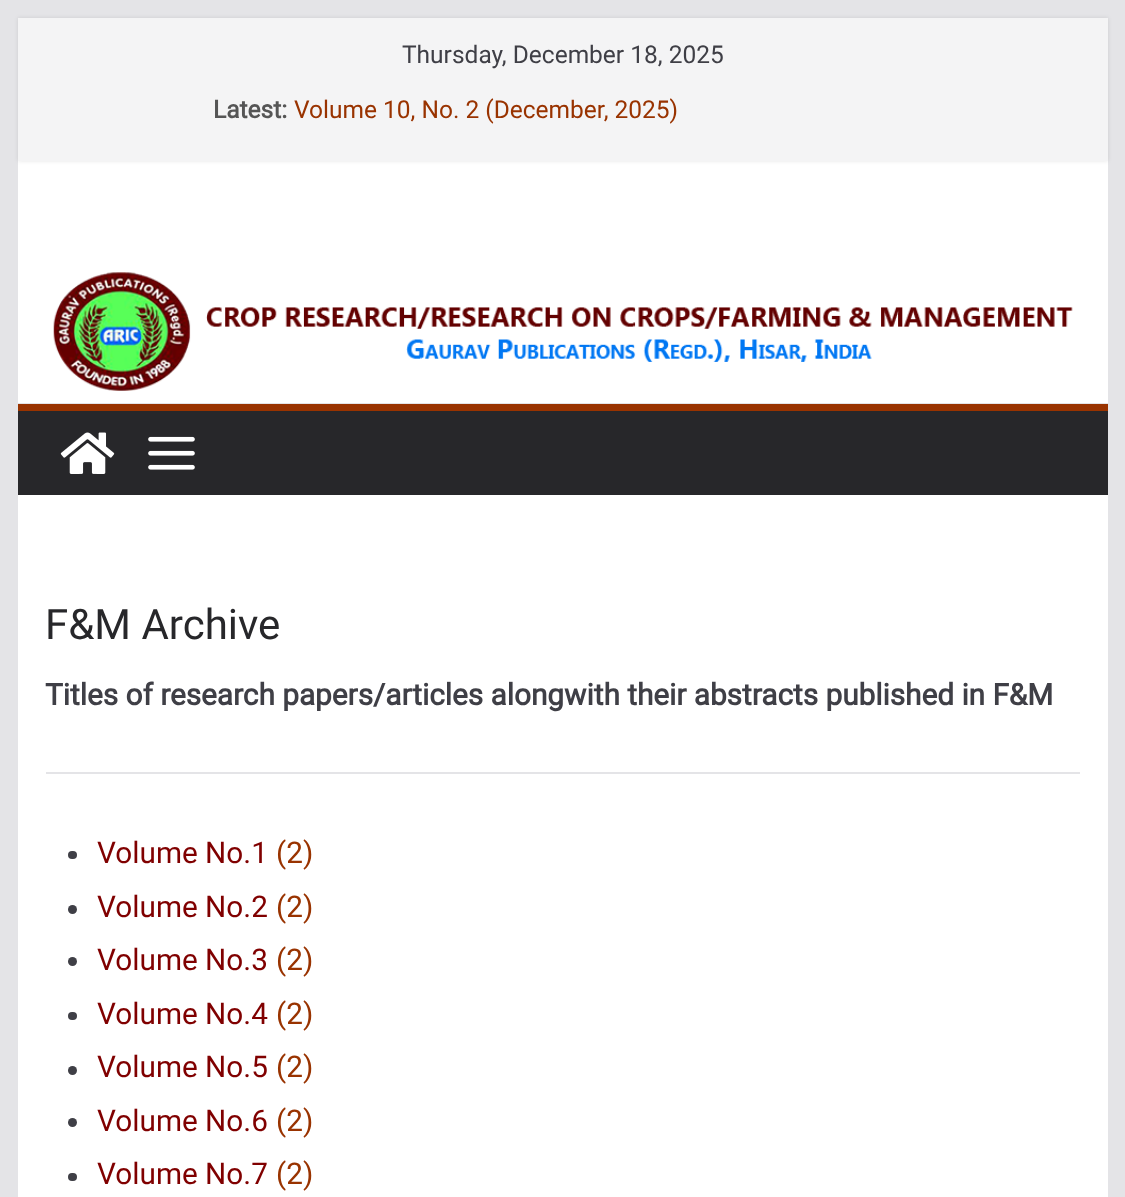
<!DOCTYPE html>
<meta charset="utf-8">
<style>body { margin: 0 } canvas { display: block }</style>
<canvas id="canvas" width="1125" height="1197"></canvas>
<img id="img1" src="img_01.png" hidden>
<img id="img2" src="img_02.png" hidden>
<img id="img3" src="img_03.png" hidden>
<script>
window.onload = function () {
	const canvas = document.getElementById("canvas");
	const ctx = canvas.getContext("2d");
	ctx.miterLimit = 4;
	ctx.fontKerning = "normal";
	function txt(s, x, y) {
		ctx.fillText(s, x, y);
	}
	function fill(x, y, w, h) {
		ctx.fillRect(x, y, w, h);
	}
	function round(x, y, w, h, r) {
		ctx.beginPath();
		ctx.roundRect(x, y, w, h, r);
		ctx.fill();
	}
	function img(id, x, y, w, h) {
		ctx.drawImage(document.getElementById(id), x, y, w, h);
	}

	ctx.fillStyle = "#E4E4E7";
	fill(0, 0, 1125, 1197);
	ctx.fillStyle = "#FFFFFF";
	fill(18, 161, 1090, 242);
	ctx.fillStyle = "rgba(0, 0, 0, 0.1)";
	ctx.filter = "blur(2px)";
	ctx.beginPath();
	ctx.rect(18, 18, 1090, 143);
	ctx.fill();
	ctx.filter = "none";
	ctx.fillStyle = "#F4F4F5";
	fill(18, 18, 1090, 143);
	img("img1", 53, 272, 1020, 119);
	ctx.fillStyle = "#27272A";
	fill(18, 411, 1090, 84);
	ctx.fillStyle = "#993300";
	fill(18, 404, 1090, 7);
	img("img2", 60, 432, 55, 42);
	img("img3", 148, 436, 47, 34);
	ctx.fillStyle = "#FFFFFF";
	fill(18, 495, 1090, 702);
	ctx.fillStyle = "#E4E4E7";
	fill(46, 772, 1034, 2);
	ctx.fillStyle = "#3F3F46";
	round(68, 851, 9, 8, 4);
	ctx.beginPath();
	ctx.arc(72.5, 909.5, 4.5, 0, Math.PI * 2);
	ctx.fill();
	ctx.beginPath();
	ctx.arc(72.5, 961.5, 4.5, 0, Math.PI * 2);
	ctx.fill();
	round(68, 1012, 9, 8, 4);
	ctx.beginPath();
	ctx.arc(72.5, 1070.5, 4.5, 0, Math.PI * 2);
	ctx.fill();
	ctx.beginPath();
	ctx.arc(72.5, 1122.5, 4.5, 0, Math.PI * 2);
	ctx.fill();
	round(68, 1173, 9, 8, 4);
	ctx.font = "24.5px Roboto";
	txt("Thursday, December 18, 2025", 402, 63);
	ctx.font = "bold 24.5px Roboto";
	ctx.fillStyle = "#555555";
	txt("Latest:", 213, 118);
	ctx.font = "24.5px Roboto";
	ctx.fillStyle = "#993300";
	txt("Volume 10, No. 2 (December, 2025)", 294, 118);
	ctx.font = "42px Roboto";
	ctx.fillStyle = "#27272A";
	txt("F&M Archive", 45, 639);
	ctx.font = "bold 29.75px Roboto";
	ctx.fillStyle = "#3F3F46";
	txt("Titles of research papers/articles alongwith their abstracts published in F&M", 45, 705);
	ctx.font = "29.75px Roboto";
	ctx.fillStyle = "#800000";
	txt("Volume No.1", 97, 863);
	ctx.fillStyle = "#993300";
	txt("(2)", 276, 863);
	ctx.fillStyle = "#800000";
	txt("Volume No.2", 97, 917);
	ctx.fillStyle = "#993300";
	txt("(2)", 276, 917);
	ctx.fillStyle = "#800000";
	txt("Volume No.3", 97, 970);
	ctx.fillStyle = "#993300";
	txt("(2)", 276, 970);
	ctx.fillStyle = "#800000";
	txt("Volume No.4", 97, 1024);
	ctx.fillStyle = "#993300";
	txt("(2)", 276, 1024);
	ctx.fillStyle = "#800000";
	txt("Volume No.5", 97, 1077);
	ctx.fillStyle = "#993300";
	txt("(2)", 276, 1077);
	ctx.fillStyle = "#800000";
	txt("Volume No.6", 97, 1131);
	ctx.fillStyle = "#993300";
	txt("(2)", 276, 1131);
	ctx.fillStyle = "#800000";
	txt("Volume No.7", 97, 1184);
	ctx.fillStyle = "#993300";
	txt("(2)", 276, 1184);
};
</script>
